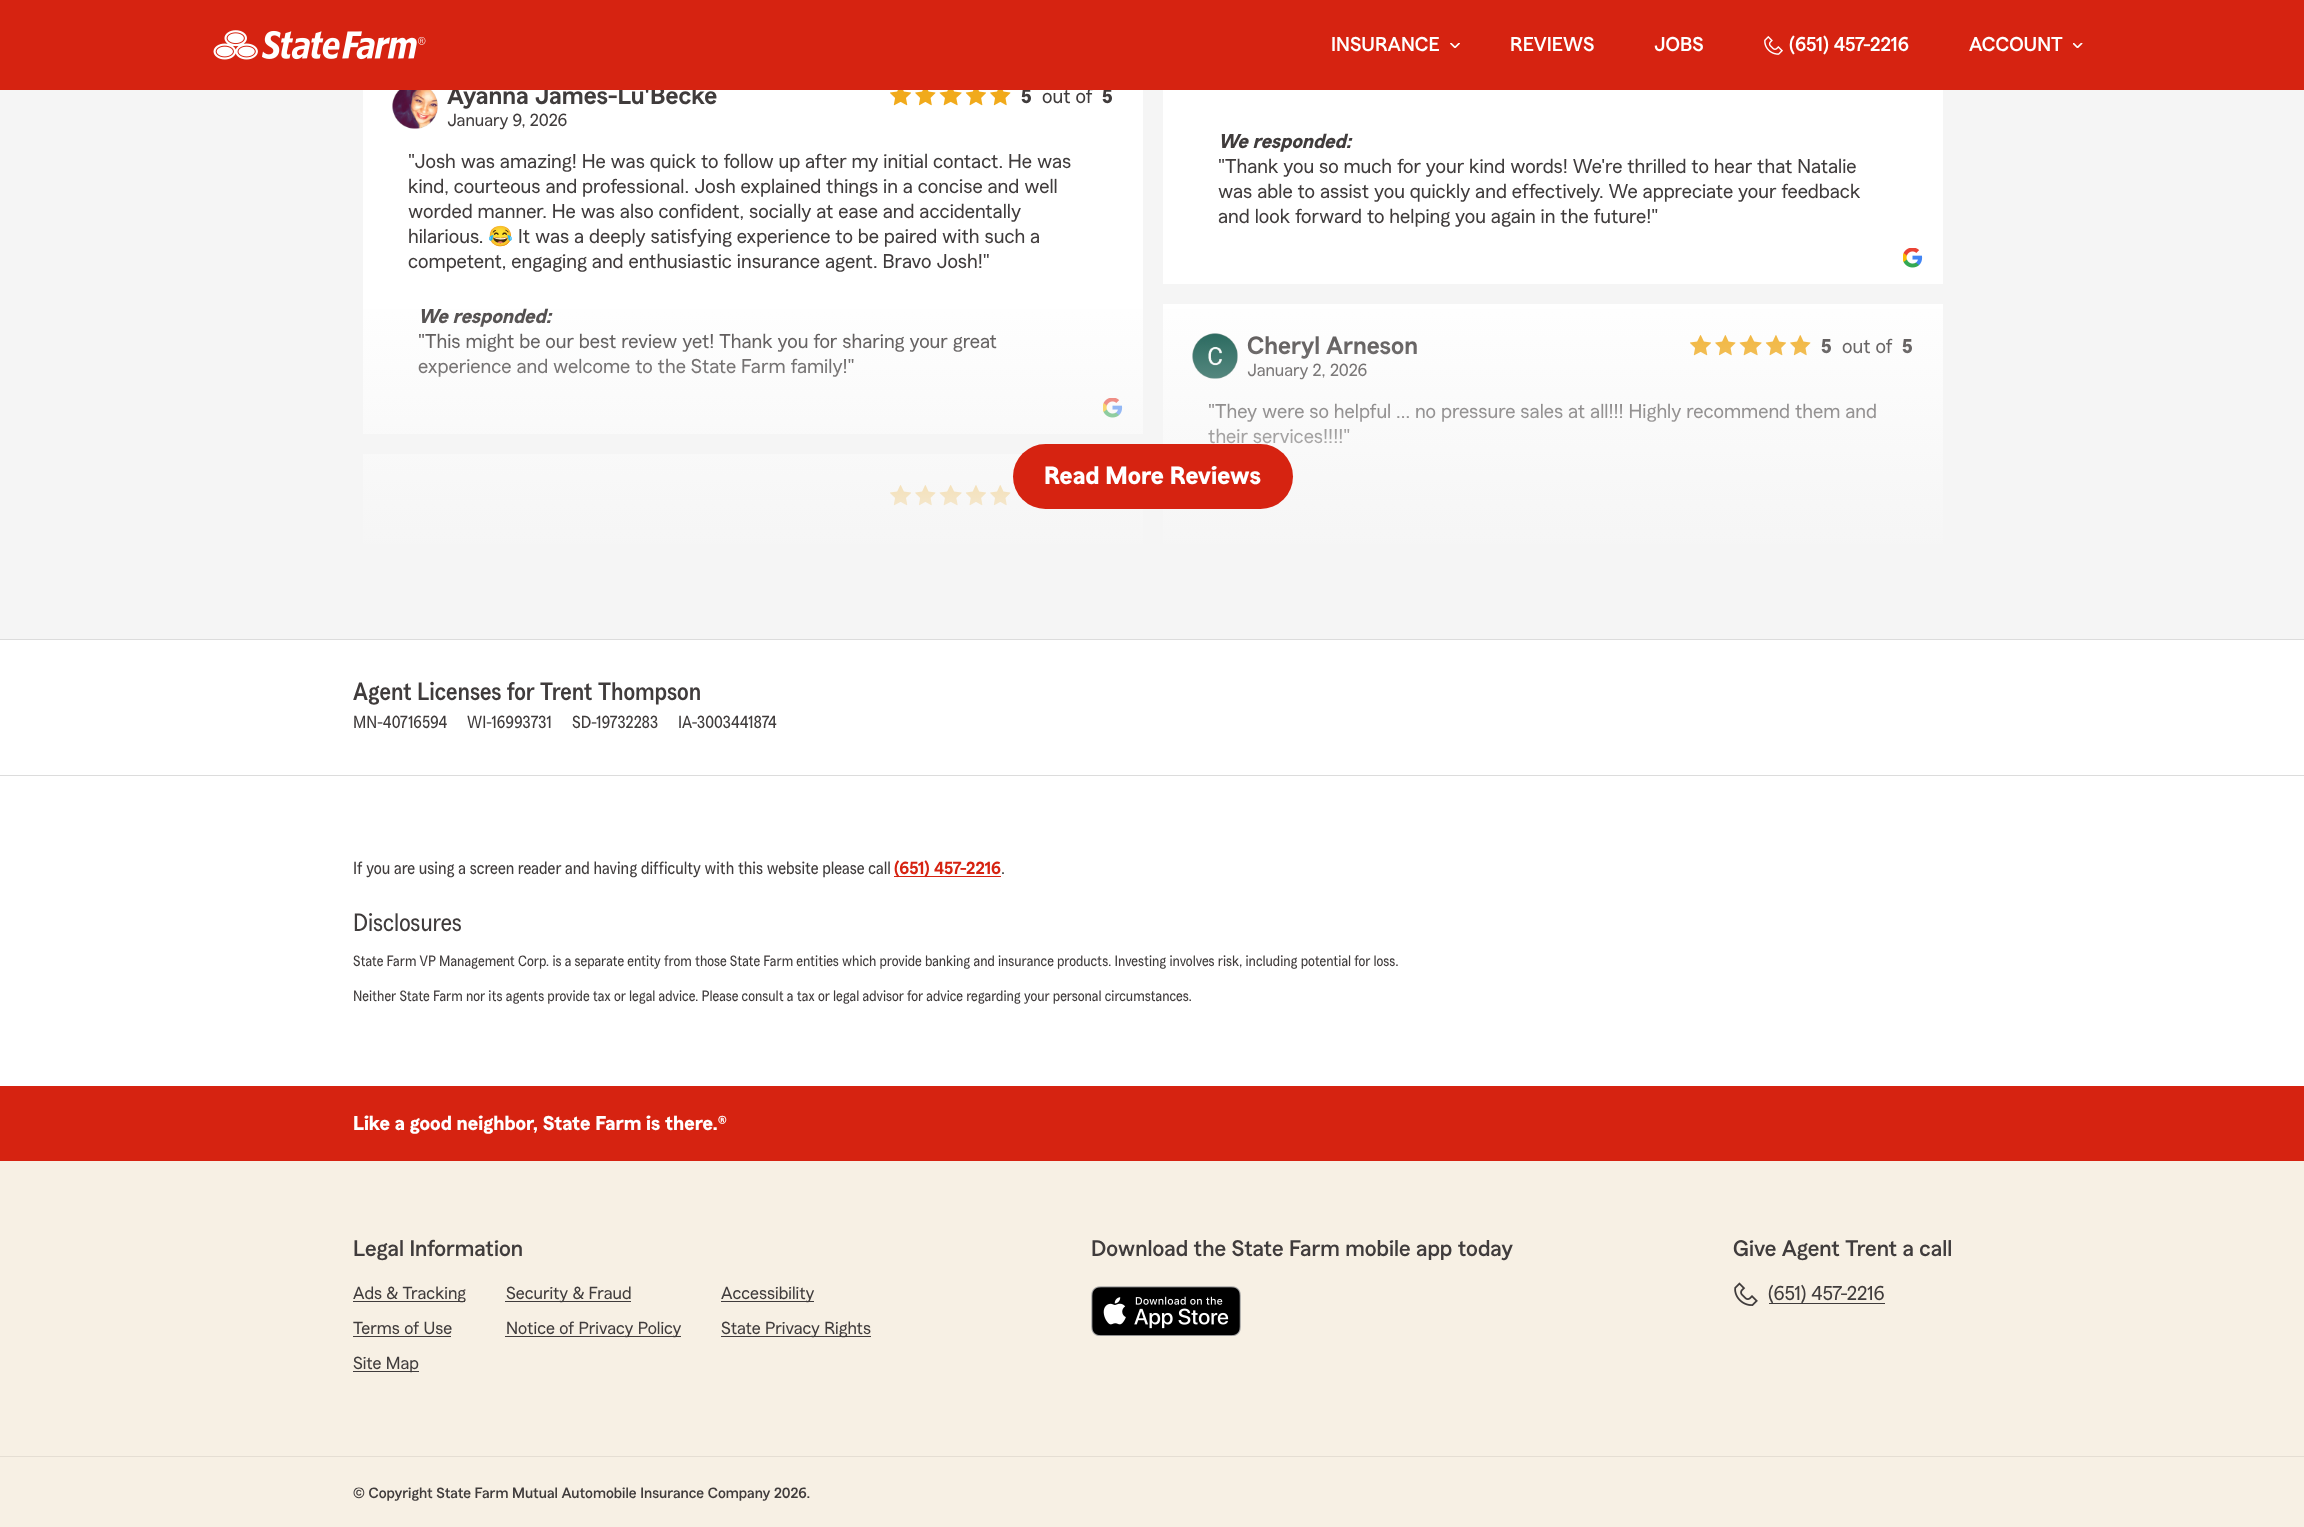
<!DOCTYPE html>
<meta charset="utf-8">
<style>body { margin: 0 } canvas { display: block }</style>
<canvas id="canvas" width="2304" height="1527"></canvas>
<img id="img1" src="img_05.png" hidden>
<img id="img2" src="img_06.png" hidden>
<img id="img3" src="img_07.png" hidden>
<img id="img4" src="img_08.png" hidden>
<img id="img5" src="img_09.png" hidden>
<img id="img6" src="img_10.png" hidden>
<img id="img7" src="img_11.png" hidden>
<img id="img8" src="img_04.png" hidden>
<img id="img9" src="img_02.png" hidden>
<img id="img10" src="img_03.png" hidden>
<img id="img11" src="img_01.png" hidden>
<script>
window.onload = function () {
	const canvas = document.getElementById("canvas");
	const ctx = canvas.getContext("2d");
	ctx.miterLimit = 4;
	ctx.fontKerning = "normal";
	function txt(s, x, y) {
		ctx.fillText(s, x, y);
	}
	function fill(x, y, w, h) {
		ctx.fillRect(x, y, w, h);
	}
	function round(x, y, w, h, r) {
		ctx.beginPath();
		ctx.roundRect(x, y, w, h, r);
		ctx.fill();
	}
	function img(id, x, y, w, h) {
		ctx.drawImage(document.getElementById(id), x, y, w, h);
	}
	let gradient;

	ctx.fillStyle = "#FFFFFF";
	fill(0, 0, 2304, 1527);
	ctx.fillStyle = "#F5F5F5";
	fill(0, 90, 2304, 549);
	ctx.fillStyle = "#FFFFFF";
	fill(363, 90, 780, 344);
	img("img1", 392, 90, 46, 39);
	img("img2", 890, 90, 121, 16);
	img("img3", 1103, 398, 20, 20);
	fill(363, 454, 780, 90);
	img("img4", 890, 485, 121, 21);
	fill(1163, 90, 780, 194);
	img("img3", 1903, 248, 20, 20);
	fill(1163, 304, 780, 240);
	img("img5", 1192, 333, 46, 46);
	img("img4", 1690, 335, 121, 21);
	ctx.fillStyle = "#DCDCDC";
	fill(0, 639, 2304, 1);
	fill(0, 775, 2304, 1);
	ctx.fillStyle = "#D62311";
	fill(894, 876, 107, 1);
	ctx.fillStyle = "#F7F0E4";
	fill(0, 1161, 2304, 366);
	ctx.fillStyle = "#D62311";
	fill(0, 1086, 2304, 75);
	ctx.fillStyle = "#403C3C";
	fill(353, 1301, 112, 1);
	fill(505, 1301, 126, 1);
	fill(721, 1301, 93, 1);
	fill(353, 1336, 98, 1);
	fill(505, 1336, 176, 1);
	fill(721, 1336, 150, 1);
	fill(353, 1371, 66, 1);
	img("img6", 1091, 1286, 150, 50);
	img("img7", 1734, 1282, 24, 24);
	fill(1769, 1303, 116, 1);
	ctx.fillStyle = "#E5DED3";
	fill(0, 1456, 2304, 1);
	ctx.font = "600 25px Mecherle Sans";
	ctx.fillStyle = "#403C3C";
	txt("Ayanna James-Lu'Becke", 447, 104);
	ctx.font = "17.5px Mecherle Sans";
	txt("January 9, 2026", 447, 126);
	ctx.font = "bold 20px Mecherle Sans";
	txt("5", 1021, 103);
	ctx.font = "20px Mecherle Sans";
	txt("out of", 1042, 103);
	ctx.font = "bold 20px Mecherle Sans";
	txt("5", 1102, 103);
	ctx.fillStyle = "#D62311";
	fill(0, 0, 2304, 90);
	img("img8", 2073, 43, 10, 5);
	ctx.font = "500 20px Mecherle Sans";
	ctx.fillStyle = "#FFFFFF";
	txt("ACCOUNT", 1969, 51);
	img("img9", 1450, 43, 10, 5);
	txt("INSURANCE", 1331, 51);
	img("img10", 1764, 36, 19, 19);
	img("img11", 213, 30, 213, 30);
	txt("(651) 457-2216", 1789, 51);
	txt("JOBS", 1654, 51);
	txt("REVIEWS", 1510, 51);
	ctx.font = "20px Mecherle Sans";
	ctx.fillStyle = "#403C3C";
	txt("\"Josh was amazing! He was quick to follow up after my initial contact. He was", 408, 168);
	txt("kind, courteous and professional. Josh explained things in a concise and well", 408, 193);
	txt("worded manner. He was also confident, socially at ease and accidentally", 408, 218);
	txt("hilarious.", 408, 243);
	ctx.font = "20px Noto Color Emoji";
	txt("😂", 488, 243);
	ctx.font = "20px Mecherle Sans";
	txt("It was a deeply satisfying experience to be paired with such a", 518, 243);
	txt("competent, engaging and enthusiastic insurance agent. Bravo Josh!\"", 408, 268);
	ctx.font = "italic bold 20px Mecherle Sans";
	txt("We responded:", 418, 323);
	ctx.font = "20px Mecherle Sans";
	txt("\"This might be our best review yet! Thank you for sharing your great", 418, 348);
	txt("experience and welcome to the State Farm family!\"", 418, 373);
	ctx.font = "italic bold 20px Mecherle Sans";
	txt("We responded:", 1218, 148);
	ctx.font = "20px Mecherle Sans";
	txt("\"Thank you so much for your kind words! We're thrilled to hear that Natalie", 1218, 173);
	txt("was able to assist you quickly and effectively. We appreciate your feedback", 1218, 198);
	txt("and look forward to helping you again in the future!\"", 1218, 223);
	ctx.font = "600 25px Mecherle Sans";
	txt("Cheryl Arneson", 1247, 354);
	ctx.font = "17.5px Mecherle Sans";
	txt("January 2, 2026", 1247, 376);
	ctx.font = "bold 20px Mecherle Sans";
	txt("5", 1821, 353);
	ctx.font = "20px Mecherle Sans";
	txt("out of", 1842, 353);
	ctx.font = "bold 20px Mecherle Sans";
	txt("5", 1902, 353);
	ctx.font = "20px Mecherle Sans";
	txt("\"They were so helpful ... no pressure sales at all!!! Highly recommend them and", 1208, 418);
	txt("their services!!!!\"", 1208, 443);
	gradient = ctx.createLinearGradient(1153, 559, 1153, 284);
	gradient.addColorStop(0, "#F5F5F5");
	gradient.addColorStop(1, "rgba(245, 245, 245, 0)");
	ctx.fillStyle = gradient;
	fill(363, 309, 1580, 235);
	ctx.fillStyle = "#D62311";
	round(1013, 444, 280, 65, 32.5);
	ctx.font = "bold 25px Mecherle Sans";
	ctx.fillStyle = "#FFFFFF";
	txt("Read More Reviews", 1044, 484);
	ctx.font = "500 25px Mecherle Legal";
	ctx.fillStyle = "#403C3C";
	txt("Agent Licenses for Trent Thompson", 353, 700);
	ctx.font = "17.5px Mecherle Legal";
	txt("MN-40716594", 353, 728);
	txt("WI-16993731", 467, 728);
	txt("SD-19732283", 572, 728);
	txt("IA-3003441874", 678, 728);
	txt("If you are using a screen reader and having difficulty with this website please call", 353, 874);
	ctx.font = "600 17.5px Mecherle Sans";
	ctx.fillStyle = "#D62311";
	txt("(651) 457-2216", 894, 874);
	ctx.font = "17.5px Mecherle Legal";
	ctx.fillStyle = "#403C3C";
	txt(".", 1001, 874);
	ctx.font = "25px Mecherle Legal";
	txt("Disclosures", 353, 931);
	ctx.font = "15px Mecherle Legal";
	txt("State Farm VP Management Corp. is a separate entity from those State Farm entities which provide banking and insurance products. Investing involves risk, including potential for loss.", 353, 966);
	txt("Neither State Farm nor its agents provide tax or legal advice. Please consult a tax or legal advisor for advice regarding your personal circumstances.", 353, 1001);
	ctx.font = "bold 20px Mecherle Sans";
	ctx.fillStyle = "#FFFFFF";
	txt("Like a good neighbor, State Farm is there.®", 353, 1130);
	ctx.font = "500 22.5px Mecherle Sans";
	ctx.fillStyle = "#403C3C";
	txt("Legal Information", 353, 1256);
	ctx.font = "17.5px Mecherle Sans";
	txt("Ads & Tracking", 353, 1299);
	txt("Security & Fraud", 506, 1299);
	txt("Accessibility", 721, 1299);
	txt("Terms of Use", 353, 1334);
	txt("Notice of Privacy Policy", 506, 1334);
	txt("State Privacy Rights", 721, 1334);
	txt("Site Map", 353, 1369);
	ctx.font = "500 22.5px Mecherle Sans";
	txt("Download the State Farm mobile app today", 1091, 1256);
	txt("Give Agent Trent a call", 1733, 1256);
	ctx.font = "20px Mecherle Sans";
	txt("(651) 457-2216", 1768, 1300);
	ctx.font = "500 15px Mecherle Sans";
	txt("© Copyright State Farm Mutual Automobile Insurance Company 2026.", 353, 1498);
};
</script>
